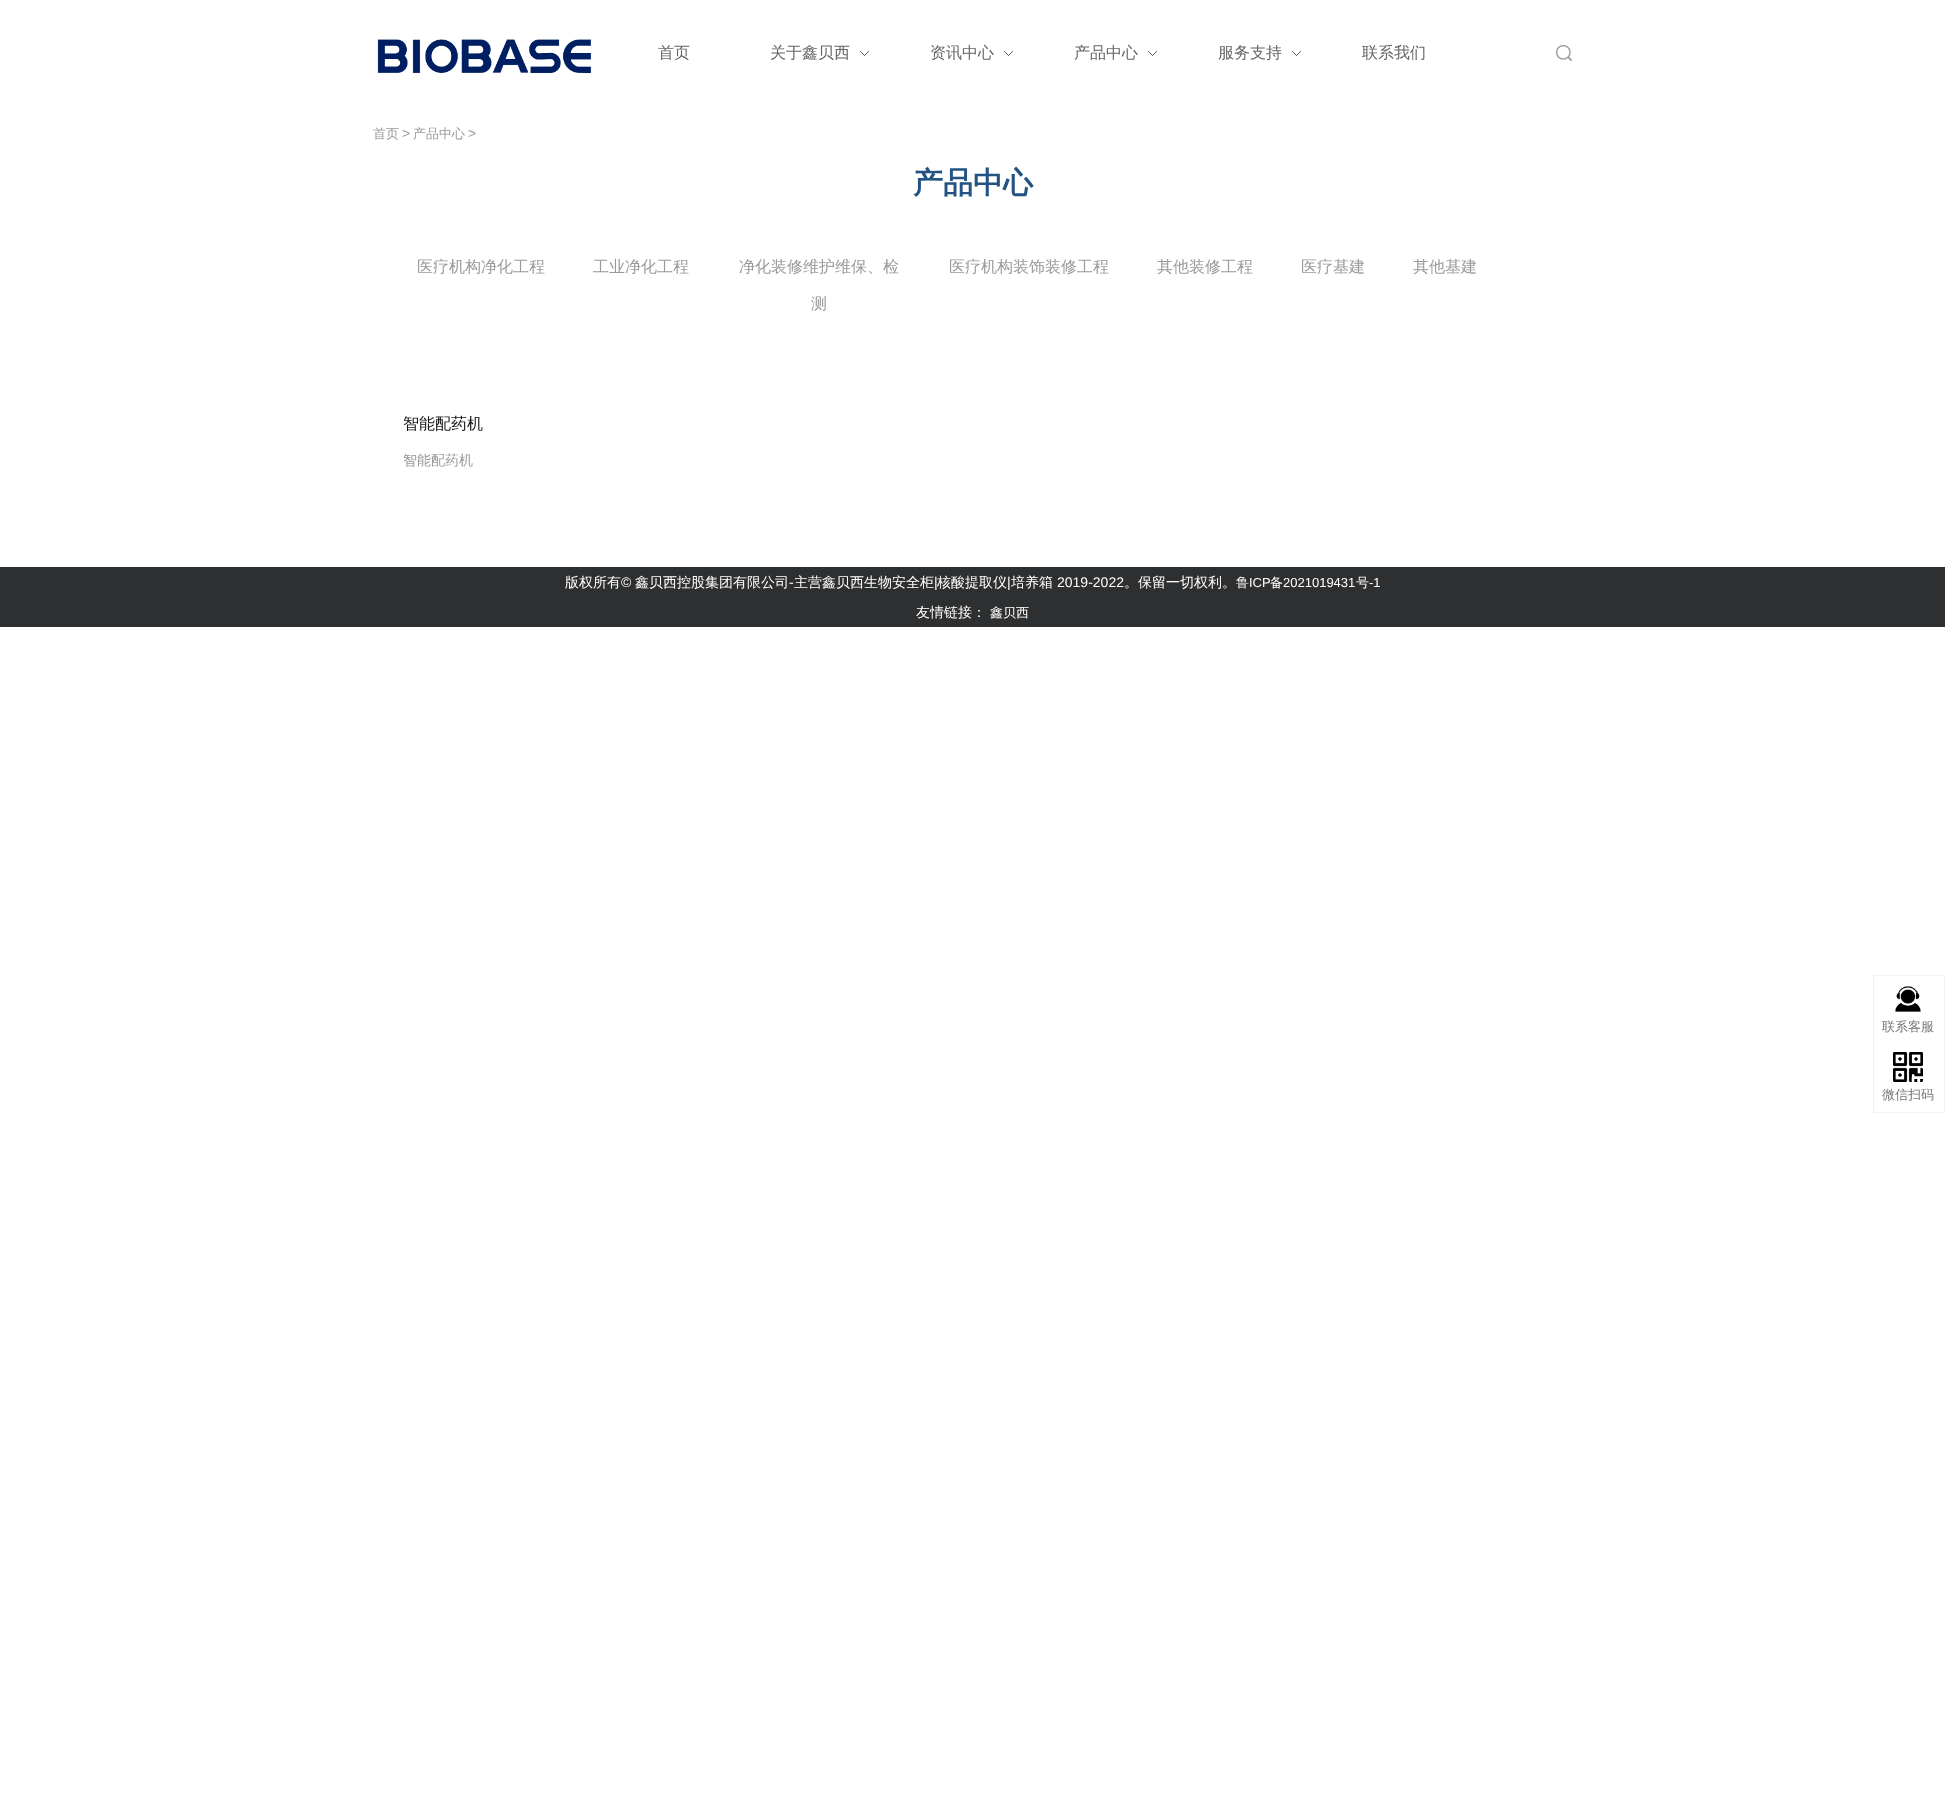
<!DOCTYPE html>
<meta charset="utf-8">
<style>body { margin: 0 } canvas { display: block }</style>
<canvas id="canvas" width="1945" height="1806"></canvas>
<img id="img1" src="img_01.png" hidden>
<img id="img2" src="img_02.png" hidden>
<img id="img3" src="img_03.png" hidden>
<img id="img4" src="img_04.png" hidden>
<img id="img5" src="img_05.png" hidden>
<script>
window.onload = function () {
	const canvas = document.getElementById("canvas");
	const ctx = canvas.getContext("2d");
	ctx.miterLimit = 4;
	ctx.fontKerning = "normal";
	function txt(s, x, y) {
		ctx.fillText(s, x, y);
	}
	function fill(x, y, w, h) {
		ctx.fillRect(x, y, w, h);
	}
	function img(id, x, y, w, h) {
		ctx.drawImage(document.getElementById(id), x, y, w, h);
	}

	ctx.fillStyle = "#FFFFFF";
	fill(0, 0, 1945, 1806);
	img("img1", 377, 39, 215, 35);
	img("img2", 860, 51, 9, 5);
	img("img2", 1004, 51, 9, 5);
	img("img2", 1148, 51, 9, 5);
	img("img2", 1292, 51, 9, 5);
	img("img3", 1556, 45, 16, 16);
	ctx.fillStyle = "#2E2F30";
	fill(0, 567, 1945, 60);
	ctx.strokeStyle = "#F2F2F2";
	ctx.strokeRect(1873.5, 975.5, 71, 137);
	img("img4", 1895, 986, 26, 26);
	img("img5", 1893, 1052, 30, 30);
	ctx.font = "500 16px WenQuanYi Zen Hei";
	ctx.fillStyle = "#666666";
	txt("首页", 658, 58);
	txt("关于鑫贝西", 770, 58);
	txt("资讯中心", 930, 58);
	txt("产品中心", 1074, 58);
	txt("服务支持", 1218, 58);
	txt("联系我们", 1362, 58);
	ctx.font = "500 13px WenQuanYi Zen Hei";
	ctx.fillStyle = "#999999";
	txt("首页", 373, 138);
	ctx.font = "14px Liberation Sans";
	txt(">", 402, 138);
	ctx.font = "500 13px WenQuanYi Zen Hei";
	txt("产品中心", 413, 138);
	ctx.font = "14px Liberation Sans";
	txt(">", 468, 138);
	ctx.font = "bold 30px WenQuanYi Zen Hei";
	ctx.fillStyle = "#225383";
	txt("产品中心", 913, 193);
	ctx.font = "500 16px WenQuanYi Zen Hei";
	ctx.fillStyle = "#999999";
	txt("医疗机构净化工程", 417, 272);
	txt("工业净化工程", 593, 272);
	txt("净化装修维护维保、检", 739, 272);
	txt("测", 811, 309);
	txt("医疗机构装饰装修工程", 949, 272);
	txt("其他装修工程", 1157, 272);
	txt("医疗基建", 1301, 272);
	txt("其他基建", 1413, 272);
	ctx.fillStyle = "#151515";
	txt("智能配药机", 403, 429);
	ctx.font = "500 14px WenQuanYi Zen Hei";
	ctx.fillStyle = "#999999";
	txt("智能配药机", 403, 465);
	ctx.fillStyle = "#FFFFFF";
	txt("版权所有", 565, 587);
	ctx.font = "14px Liberation Sans";
	txt("©", 621, 587);
	ctx.font = "500 14px WenQuanYi Zen Hei";
	txt("鑫贝西控股集团有限公司", 635, 587);
	ctx.font = "14px Liberation Sans";
	txt("-", 789, 587);
	ctx.font = "500 14px WenQuanYi Zen Hei";
	txt("主营鑫贝西生物安全柜", 794, 587);
	ctx.font = "14px Liberation Sans";
	txt("|", 934, 587);
	ctx.font = "500 14px WenQuanYi Zen Hei";
	txt("核酸提取仪", 937, 587);
	ctx.font = "14px Liberation Sans";
	txt("|", 1007, 587);
	ctx.font = "500 14px WenQuanYi Zen Hei";
	txt("培养箱", 1011, 587);
	ctx.font = "14px Liberation Sans";
	txt("2019-2022", 1057, 587);
	ctx.font = "500 14px WenQuanYi Zen Hei";
	txt("。保留一切权利。", 1124, 587);
	ctx.font = "500 13px WenQuanYi Zen Hei";
	txt("鲁", 1236, 587);
	ctx.font = "13px Liberation Sans";
	txt("ICP", 1249, 587);
	ctx.font = "500 13px WenQuanYi Zen Hei";
	txt("备", 1270, 587);
	ctx.font = "13px Liberation Sans";
	txt("2021019431", 1283, 587);
	ctx.font = "500 13px WenQuanYi Zen Hei";
	txt("号", 1356, 587);
	ctx.font = "13px Liberation Sans";
	txt("-1", 1369, 587);
	ctx.font = "500 14px WenQuanYi Zen Hei";
	txt("友情链接：", 916, 617);
	ctx.font = "500 13px WenQuanYi Zen Hei";
	txt("鑫贝西", 990, 617);
	ctx.fillStyle = "#777777";
	txt("联系客服", 1882, 1031);
	txt("微信扫码", 1882, 1099);
};
</script>
